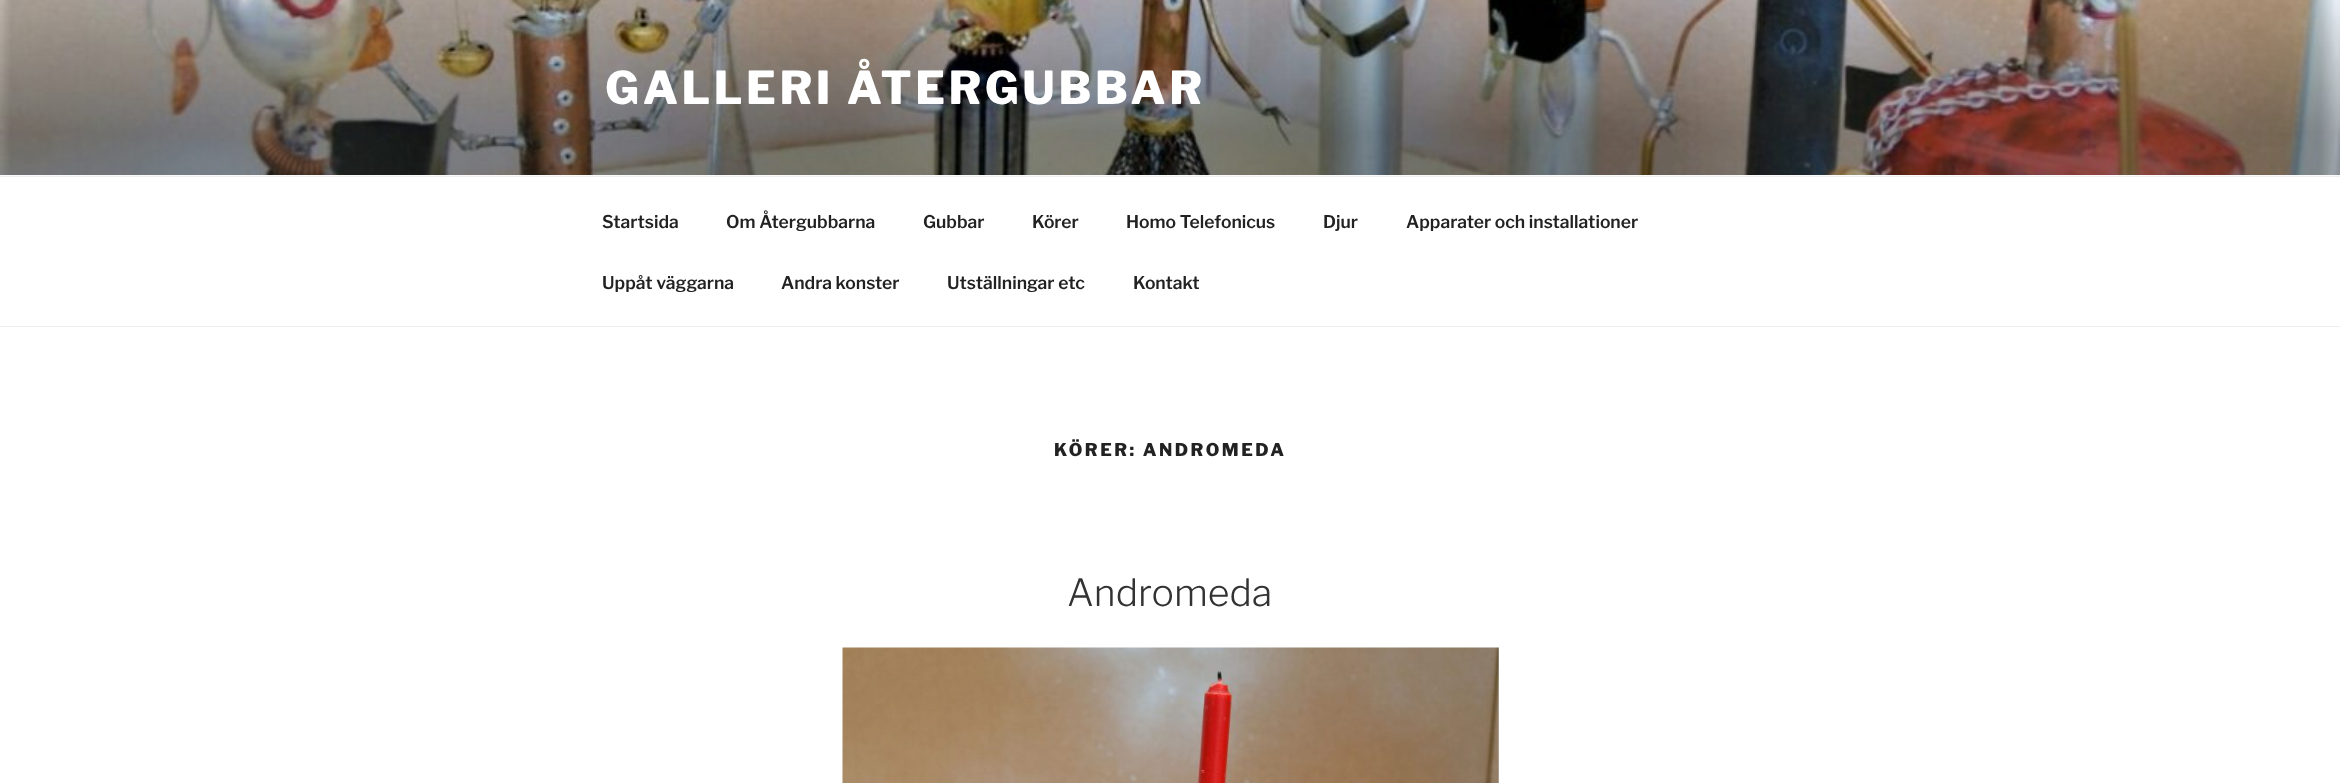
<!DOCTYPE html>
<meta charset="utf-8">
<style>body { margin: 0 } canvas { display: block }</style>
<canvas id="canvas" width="2340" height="783"></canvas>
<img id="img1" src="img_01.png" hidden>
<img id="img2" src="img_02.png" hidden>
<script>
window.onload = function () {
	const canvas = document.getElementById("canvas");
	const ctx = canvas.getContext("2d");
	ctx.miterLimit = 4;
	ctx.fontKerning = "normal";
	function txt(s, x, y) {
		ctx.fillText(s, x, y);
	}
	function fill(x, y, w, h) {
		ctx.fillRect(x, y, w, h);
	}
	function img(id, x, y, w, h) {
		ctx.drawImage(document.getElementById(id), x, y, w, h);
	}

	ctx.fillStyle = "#FFFFFF";
	fill(0, 0, 2340, 783);
	ctx.fillStyle = "#FAFAFA";
	fill(0, 175, 2340, 1);
	img("img1", 0, 0, 2340, 175);
	ctx.fillStyle = "#EEEEEE";
	fill(0, 176, 2340, 1);
	fill(0, 326, 2340, 1);
	img("img2", 842, 647, 657, 136);
	ctx.letterSpacing = "3.6px";
	ctx.font = "800 45px Libre Franklin";
	ctx.fillStyle = "#FFFFFF";
	txt("GALLERI ÅTERGUBBAR", 605, 104);
	ctx.letterSpacing = "0px";
	ctx.font = "600 17.5px Libre Franklin";
	ctx.fillStyle = "#222222";
	txt("Startsida", 602, 228);
	txt("Om Återgubbarna", 726, 228);
	txt("Gubbar", 923, 228);
	txt("Körer", 1032, 228);
	txt("Homo Telefonicus", 1126, 228);
	txt("Djur", 1323, 228);
	txt("Apparater och installationer", 1406, 228);
	txt("Uppåt väggarna", 602, 289);
	txt("Andra konster", 781, 289);
	txt("Utställningar etc", 947, 289);
	txt("Kontakt", 1133, 289);
	ctx.letterSpacing = "2.5px";
	ctx.font = "800 17.5px Libre Franklin";
	txt("KÖRER: ANDROMEDA", 1054, 456);
	ctx.letterSpacing = "0px";
	ctx.font = "300 37.5px Libre Franklin";
	ctx.fillStyle = "#333333";
	txt("Andromeda", 1067, 606);
};
</script>
